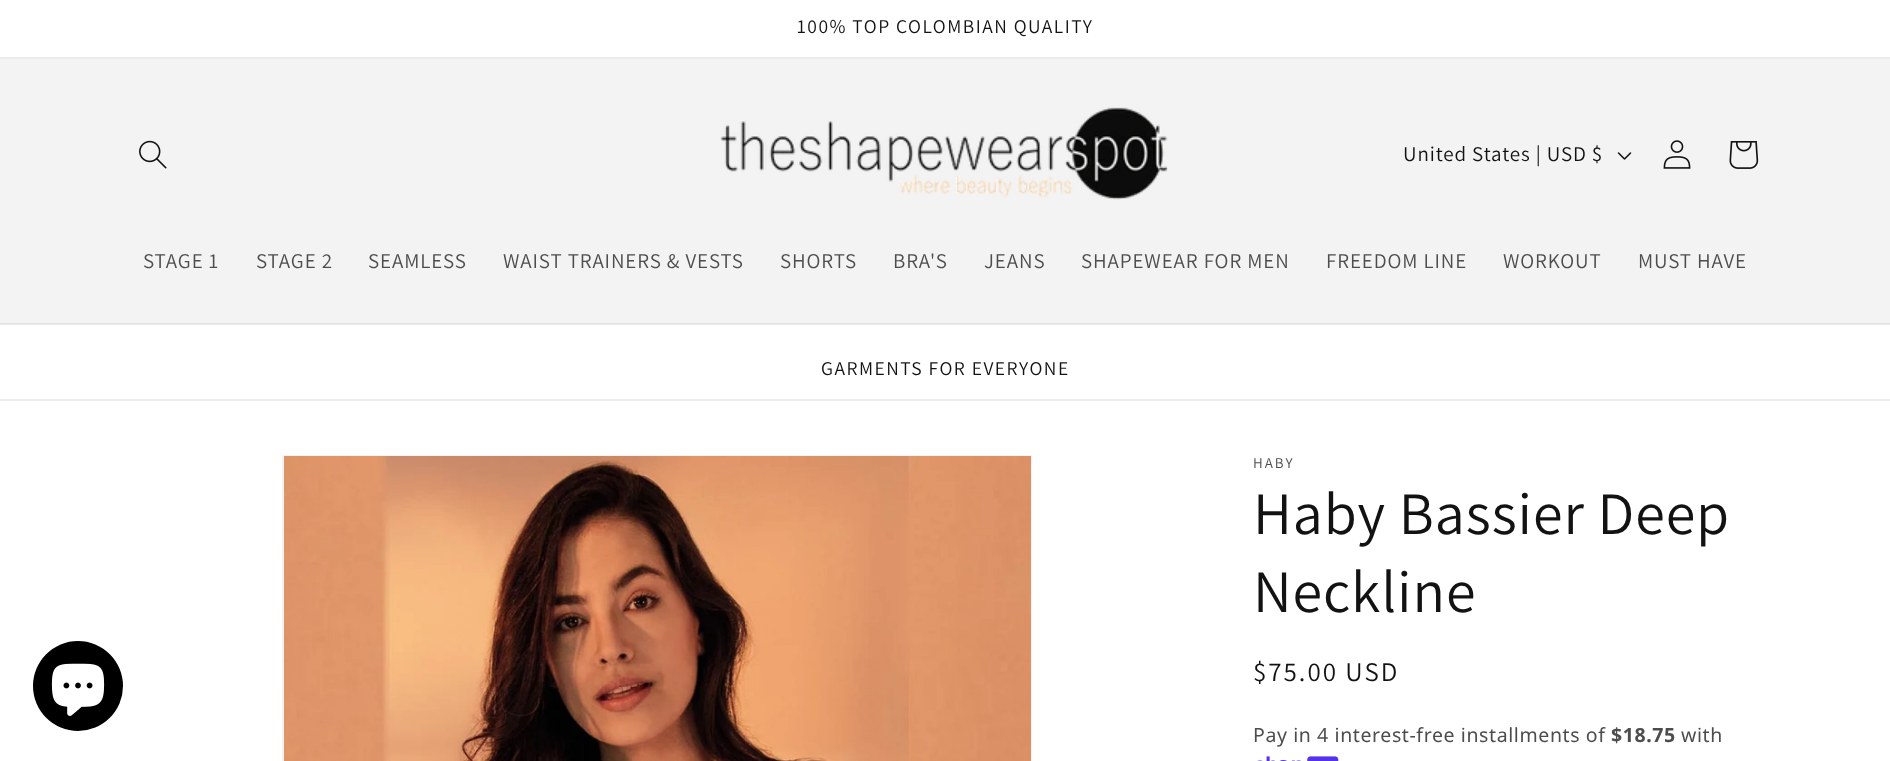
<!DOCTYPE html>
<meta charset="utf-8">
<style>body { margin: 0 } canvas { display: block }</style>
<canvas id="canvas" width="1890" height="761"></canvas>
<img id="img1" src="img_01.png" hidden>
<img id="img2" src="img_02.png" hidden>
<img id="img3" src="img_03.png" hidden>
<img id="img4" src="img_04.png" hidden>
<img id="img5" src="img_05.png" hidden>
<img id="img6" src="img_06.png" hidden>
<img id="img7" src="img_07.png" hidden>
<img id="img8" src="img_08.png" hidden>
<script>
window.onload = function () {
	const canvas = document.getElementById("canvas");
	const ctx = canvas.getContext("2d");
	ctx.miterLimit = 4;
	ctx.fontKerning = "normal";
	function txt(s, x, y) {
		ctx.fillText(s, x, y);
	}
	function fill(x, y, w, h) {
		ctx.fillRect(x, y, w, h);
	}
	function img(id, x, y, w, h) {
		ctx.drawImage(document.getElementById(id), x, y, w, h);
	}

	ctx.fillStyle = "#FFFFFF";
	fill(0, 0, 1890, 761);
	ctx.fillStyle = "#ECECEC";
	fill(0, 324, 1890, 1);
	fill(0, 57, 1890, 2);
	ctx.fillStyle = "#F3F3F3";
	fill(0, 59, 1890, 264);
	ctx.fillStyle = "#E1E1E1";
	fill(0, 323, 1890, 1);
	img("img1", 139, 140, 28, 29);
	img("img2", 720, 107, 448, 93);
	img("img3", 1617, 152, 15, 8);
	img("img4", 1663, 140, 28, 29);
	img("img5", 1729, 141, 30, 28);
	ctx.fillStyle = "#ECECEC";
	fill(0, 399, 1890, 2);
	ctx.fillStyle = "#000000";
	ctx.beginPath();
	ctx.arc(78, 686, 45, 0, Math.PI * 2);
	ctx.fill();
	img("img6", 51, 663, 54, 53);
	ctx.strokeStyle = "#F3F3F3";
	ctx.lineWidth = 2;
	ctx.strokeRect(283, 456, 748, 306);
	img("img7", 284, 456, 747, 305);
	img("img8", 1257, 756, 82, 5);
	ctx.letterSpacing = "1.5px";
	ctx.font = "19.5px Assistant";
	ctx.fillStyle = "#121212";
	txt("100% TOP COLOMBIAN QUALITY", 797, 33);
	ctx.letterSpacing = "0.9px";
	ctx.font = "21px Assistant";
	txt("United States | USD $", 1403, 161);
	ctx.fillStyle = "#4D4D4D";
	txt("STAGE 1", 143, 268);
	txt("STAGE 2", 256, 268);
	txt("SEAMLESS", 368, 268);
	txt("WAIST TRAINERS & VESTS", 503, 268);
	txt("SHORTS", 780, 268);
	txt("BRA'S", 893, 268);
	txt("JEANS", 984, 268);
	txt("SHAPEWEAR FOR MEN", 1081, 268);
	txt("FREEDOM LINE", 1326, 268);
	txt("WORKOUT", 1503, 268);
	txt("MUST HAVE", 1638, 268);
	ctx.letterSpacing = "1.5px";
	ctx.font = "19.5px Assistant";
	ctx.fillStyle = "#121212";
	txt("GARMENTS FOR EVERYONE", 821, 375);
	ctx.letterSpacing = "2px";
	ctx.font = "15px Assistant";
	ctx.fillStyle = "#4D4D4D";
	txt("HABY", 1253, 468);
	ctx.letterSpacing = "0.9px";
	ctx.font = "60px Assistant";
	ctx.fillStyle = "#121212";
	txt("Haby Bassier Deep", 1253, 534);
	txt("Neckline", 1253, 612);
	ctx.letterSpacing = "2px";
	ctx.font = "27px Assistant";
	txt("$75.00 USD", 1253, 681);
	ctx.letterSpacing = "0.6px";
	ctx.font = "19.5px Noto Sans";
	ctx.fillStyle = "#4D4D4D";
	txt("Pay in 4 interest-free installments of", 1253, 742);
	ctx.font = "bold 19.5px Noto Sans";
	txt("$18.75", 1611, 742);
	ctx.font = "19.5px Noto Sans";
	txt("with", 1681, 742);
};
</script>
